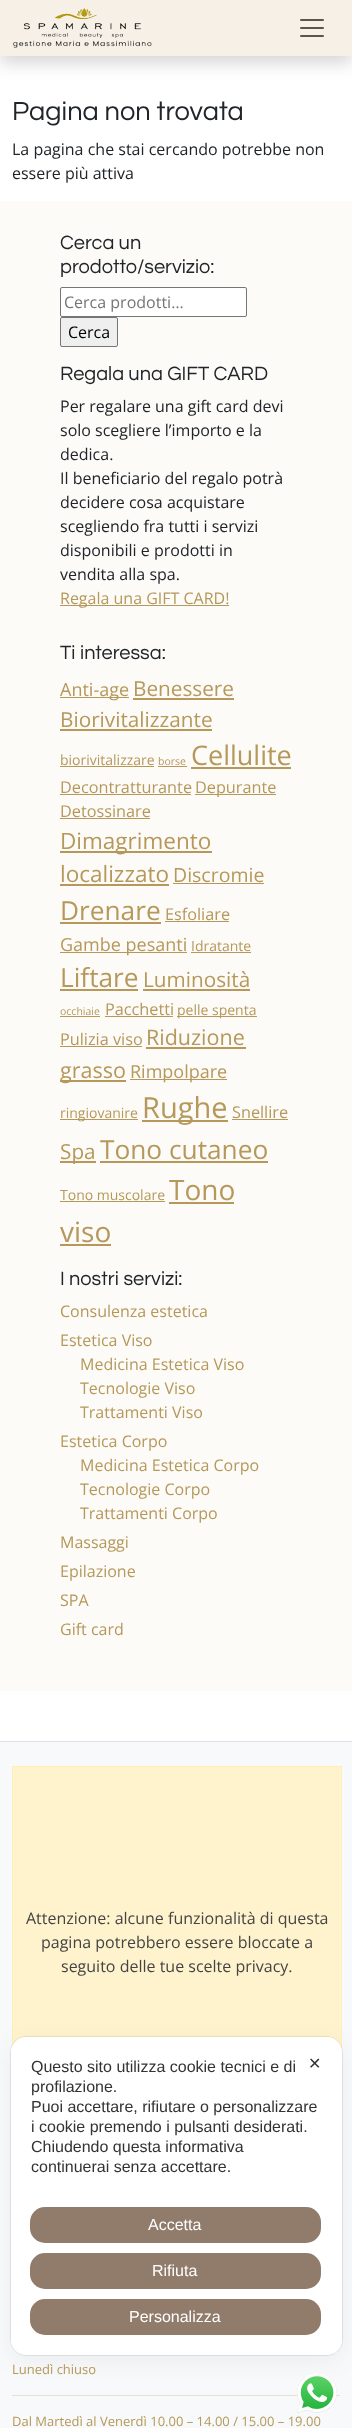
<!DOCTYPE html>
<meta charset="utf-8">
<style>body { margin: 0 } canvas { display: block }</style>
<canvas id="canvas" width="352" height="2428"></canvas>
<img id="img1" src="img_01.png" hidden>
<img id="img2" src="img_02.png" hidden>
<img id="img3" src="img_03.png" hidden>
<script>
window.onload = function () {
	const canvas = document.getElementById("canvas");
	const ctx = canvas.getContext("2d");
	ctx.miterLimit = 4;
	ctx.fontKerning = "normal";
	function txt(s, x, y) {
		ctx.fillText(s, x, y);
	}
	function fill(x, y, w, h) {
		ctx.fillRect(x, y, w, h);
	}
	function round(x, y, w, h, r) {
		ctx.beginPath();
		ctx.roundRect(x, y, w, h, r);
		ctx.fill();
	}
	function img(id, x, y, w, h) {
		ctx.drawImage(document.getElementById(id), x, y, w, h);
	}

	ctx.fillStyle = "#FFFFFF";
	fill(0, 0, 352, 2428);
	ctx.fillStyle = "rgba(0, 0, 0, 0.15)";
	ctx.filter = "blur(8px)";
	ctx.beginPath();
	ctx.rect(0, 8, 352, 56);
	ctx.fill();
	ctx.filter = "none";
	ctx.fillStyle = "#F6F0E7";
	fill(0, 0, 352, 56);
	img("img1", 13, 8, 139, 40);
	img("img2", 300, 19, 24, 18);
	ctx.fillStyle = "#FDFBF8";
	fill(0, 201, 352, 1490);
	ctx.fillStyle = "#FFFFFF";
	ctx.beginPath();
	ctx.roundRect(60.5, 287.5, 186, 29, 1.5);
	ctx.fill();
	ctx.strokeStyle = "#767676";
	ctx.stroke();
	ctx.fillStyle = "#EFEFEF";
	ctx.beginPath();
	ctx.roundRect(60.5, 317.5, 57, 29, 1.5);
	ctx.fill();
	ctx.stroke();
	ctx.fillStyle = "#B5985A";
	fill(60, 605, 169, 1);
	fill(60, 697, 69, 1);
	fill(133, 698, 101, 2);
	fill(60, 729, 152, 2);
	fill(60, 766, 94, 1);
	fill(158, 766, 29, 1);
	fill(191, 767, 100, 2);
	fill(60, 794, 131, 1);
	fill(195, 794, 81, 1);
	fill(60, 818, 90, 1);
	fill(60, 851, 152, 2);
	fill(60, 884, 109, 2);
	fill(173, 883, 91, 1);
	fill(60, 922, 101, 2);
	fill(165, 921, 64, 1);
	fill(60, 952, 127, 1);
	fill(191, 952, 60, 1);
	fill(60, 989, 78, 2);
	fill(143, 989, 107, 2);
	fill(60, 1016, 40, 1);
	fill(105, 1016, 68, 1);
	fill(177, 1016, 80, 1);
	fill(60, 1046, 82, 1);
	fill(146, 1047, 100, 2);
	fill(60, 1080, 66, 2);
	fill(130, 1079, 97, 1);
	fill(60, 1119, 78, 1);
	fill(142, 1120, 86, 2);
	fill(232, 1119, 56, 1);
	fill(60, 1161, 36, 2);
	fill(100, 1161, 168, 2);
	fill(60, 1201, 105, 1);
	fill(169, 1202, 65, 2);
	fill(60, 1244, 51, 2);
	ctx.fillStyle = "#F8F9FA";
	fill(0, 1742, 352, 686);
	ctx.fillStyle = "#DEE2E6";
	fill(0, 1741, 352, 1);
	ctx.fillStyle = "#FFF3CD";
	fill(13, 1767, 328, 280);
	ctx.strokeStyle = "#FFEEBA";
	ctx.strokeRect(12.5, 1766.5, 329, 351);
	ctx.fillStyle = "#E7E1D2";
	fill(12, 2395, 328, 1);
	ctx.beginPath();
	ctx.roundRect(10.5, 2036.5, 332, 319, 15.5);
	ctx.strokeStyle = "rgba(0, 0, 0, 0.08)";
	ctx.stroke();
	img("img3", 297, 2373, 40, 40);
	ctx.fillStyle = "rgba(0, 0, 0, 0.05)";
	ctx.filter = "blur(12px)";
	ctx.beginPath();
	ctx.roundRect(11, 2043, 331, 318, 15);
	ctx.fill();
	ctx.filter = "none";
	ctx.fillStyle = "#FFFFFF";
	round(11, 2037, 331, 318, 15);
	ctx.fillStyle = "#917C6C";
	round(30, 2207, 291, 36, 15);
	round(30, 2253, 291, 36, 15);
	round(30, 2299, 291, 36, 15);
	ctx.font = "27.25px Questrial";
	ctx.fillStyle = "#212529";
	txt("Pagina non trovata", 12, 120);
	ctx.font = "16px Open Sans";
	txt("La pagina che stai cercando potrebbe non", 12, 155);
	txt("essere più attiva", 12, 179);
	ctx.font = "20px Questrial";
	txt("Cerca un", 60, 249);
	txt("prodotto/servizio:", 60, 273);
	ctx.font = "16px Open Sans";
	ctx.fillStyle = "#757575";
	txt("Cerca prodotti…", 64, 308);
	ctx.fillStyle = "#000000";
	txt("Cerca", 68, 338);
	ctx.font = "20px Questrial";
	ctx.fillStyle = "#212529";
	txt("Regala una GIFT CARD", 60, 380);
	ctx.font = "16px Open Sans";
	txt("Per regalare una gift card devi", 60, 412);
	txt("solo scegliere l’importo e la", 60, 436);
	txt("dedica.", 60, 460);
	txt("Il beneficiario del regalo potrà", 60, 484);
	txt("decidere cosa acquistare", 60, 508);
	txt("scegliendo fra tutti i servizi", 60, 532);
	txt("disponibili e prodotti in", 60, 556);
	txt("vendita alla spa.", 60, 580);
	ctx.fillStyle = "#B5985A";
	txt("Regala una GIFT CARD!", 60, 604);
	ctx.font = "20px Questrial";
	ctx.fillStyle = "#212529";
	txt("Ti interessa:", 60, 659);
	ctx.font = "18px Open Sans";
	ctx.fillStyle = "#B5985A";
	txt("Anti-age", 60, 696);
	ctx.font = "20.75px Open Sans";
	txt("Benessere", 133, 696);
	txt("Biorivitalizzante", 60, 727);
	ctx.font = "14px Open Sans";
	txt("biorivitalizzare", 60, 765);
	ctx.font = "10.5px Open Sans";
	txt("borse", 158, 765);
	ctx.font = "27px Open Sans";
	txt("Cellulite", 191, 765);
	ctx.font = "16.25px Open Sans";
	txt("Decontratturante", 60, 793);
	txt("Depurante", 195, 793);
	txt("Detossinare", 60, 817);
	ctx.font = "22.5px Open Sans";
	txt("Dimagrimento", 60, 849);
	txt("localizzato", 60, 882);
	ctx.font = "19.5px Open Sans";
	txt("Discromie", 173, 882);
	ctx.font = "26.25px Open Sans";
	txt("Drenare", 60, 920);
	ctx.font = "16.25px Open Sans";
	txt("Esfoliare", 165, 920);
	ctx.font = "18px Open Sans";
	txt("Gambe pesanti", 60, 951);
	ctx.font = "14px Open Sans";
	txt("Idratante", 191, 951);
	ctx.font = "26.25px Open Sans";
	txt("Liftare", 60, 987);
	ctx.font = "20.75px Open Sans";
	txt("Luminosità", 143, 987);
	ctx.font = "10.5px Open Sans";
	txt("occhiaie", 60, 1015);
	ctx.font = "16.25px Open Sans";
	txt("Pacchetti", 105, 1015);
	ctx.font = "14px Open Sans";
	txt("pelle spenta", 177, 1015);
	ctx.font = "16.25px Open Sans";
	txt("Pulizia viso", 60, 1045);
	ctx.font = "21.5px Open Sans";
	txt("Riduzione", 146, 1045);
	txt("grasso", 60, 1078);
	ctx.font = "18px Open Sans";
	txt("Rimpolpare", 130, 1078);
	ctx.font = "14px Open Sans";
	txt("ringiovanire", 60, 1118);
	ctx.font = "29px Open Sans";
	txt("Rughe", 142, 1118);
	ctx.font = "16.25px Open Sans";
	txt("Snellire", 232, 1118);
	ctx.font = "20.75px Open Sans";
	txt("Spa", 60, 1159);
	ctx.font = "26.25px Open Sans";
	txt("Tono cutaneo", 100, 1159);
	ctx.font = "14px Open Sans";
	txt("Tono muscolare", 60, 1200);
	ctx.font = "28px Open Sans";
	txt("Tono", 169, 1200);
	txt("viso", 60, 1242);
	ctx.font = "20px Questrial";
	ctx.fillStyle = "#212529";
	txt("I nostri servizi:", 60, 1285);
	ctx.font = "16px Open Sans";
	ctx.fillStyle = "#B5985A";
	txt("Consulenza estetica", 60, 1317);
	txt("Estetica Viso", 60, 1346);
	txt("Medicina Estetica Viso", 80, 1370);
	txt("Tecnologie Viso", 80, 1394);
	txt("Trattamenti Viso", 80, 1418);
	txt("Estetica Corpo", 60, 1447);
	txt("Medicina Estetica Corpo", 80, 1471);
	txt("Tecnologie Corpo", 80, 1495);
	txt("Trattamenti Corpo", 80, 1519);
	txt("Massaggi", 60, 1548);
	txt("Epilazione", 60, 1577);
	txt("SPA", 60, 1606);
	txt("Gift card", 60, 1635);
	ctx.fillStyle = "#444444";
	txt("Attenzione: alcune funzionalità di questa", 26, 1924);
	txt("pagina potrebbero essere bloccate a", 41, 1948);
	txt("seguito delle tue scelte privacy.", 61, 1972);
	ctx.font = "13px Open Sans";
	ctx.fillStyle = "#B5985A";
	txt("Lunedì chiuso", 12, 2374);
	txt("Dal Martedì al Venerdì 10.00 – 14.00 / 15.00 – 19.00", 12, 2426);
	ctx.font = "16px DejaVu Sans";
	ctx.fillStyle = "#333333";
	txt("✕", 308, 2069);
	ctx.font = "16px Liberation Sans";
	txt("Questo sito utilizza cookie tecnici e di", 31, 2072);
	txt("profilazione.", 31, 2092);
	txt("Puoi accettare, rifiutare o personalizzare", 31, 2112);
	txt("i cookie premendo i pulsanti desiderati.", 31, 2132);
	txt("Chiudendo questa informativa", 31, 2152);
	txt("continuerai senza accettare.", 31, 2172);
	ctx.fillStyle = "#FFFFFF";
	txt("Accetta", 148, 2230);
	txt("Rifiuta", 152, 2276);
	txt("Personalizza", 129, 2322);
};
</script>
